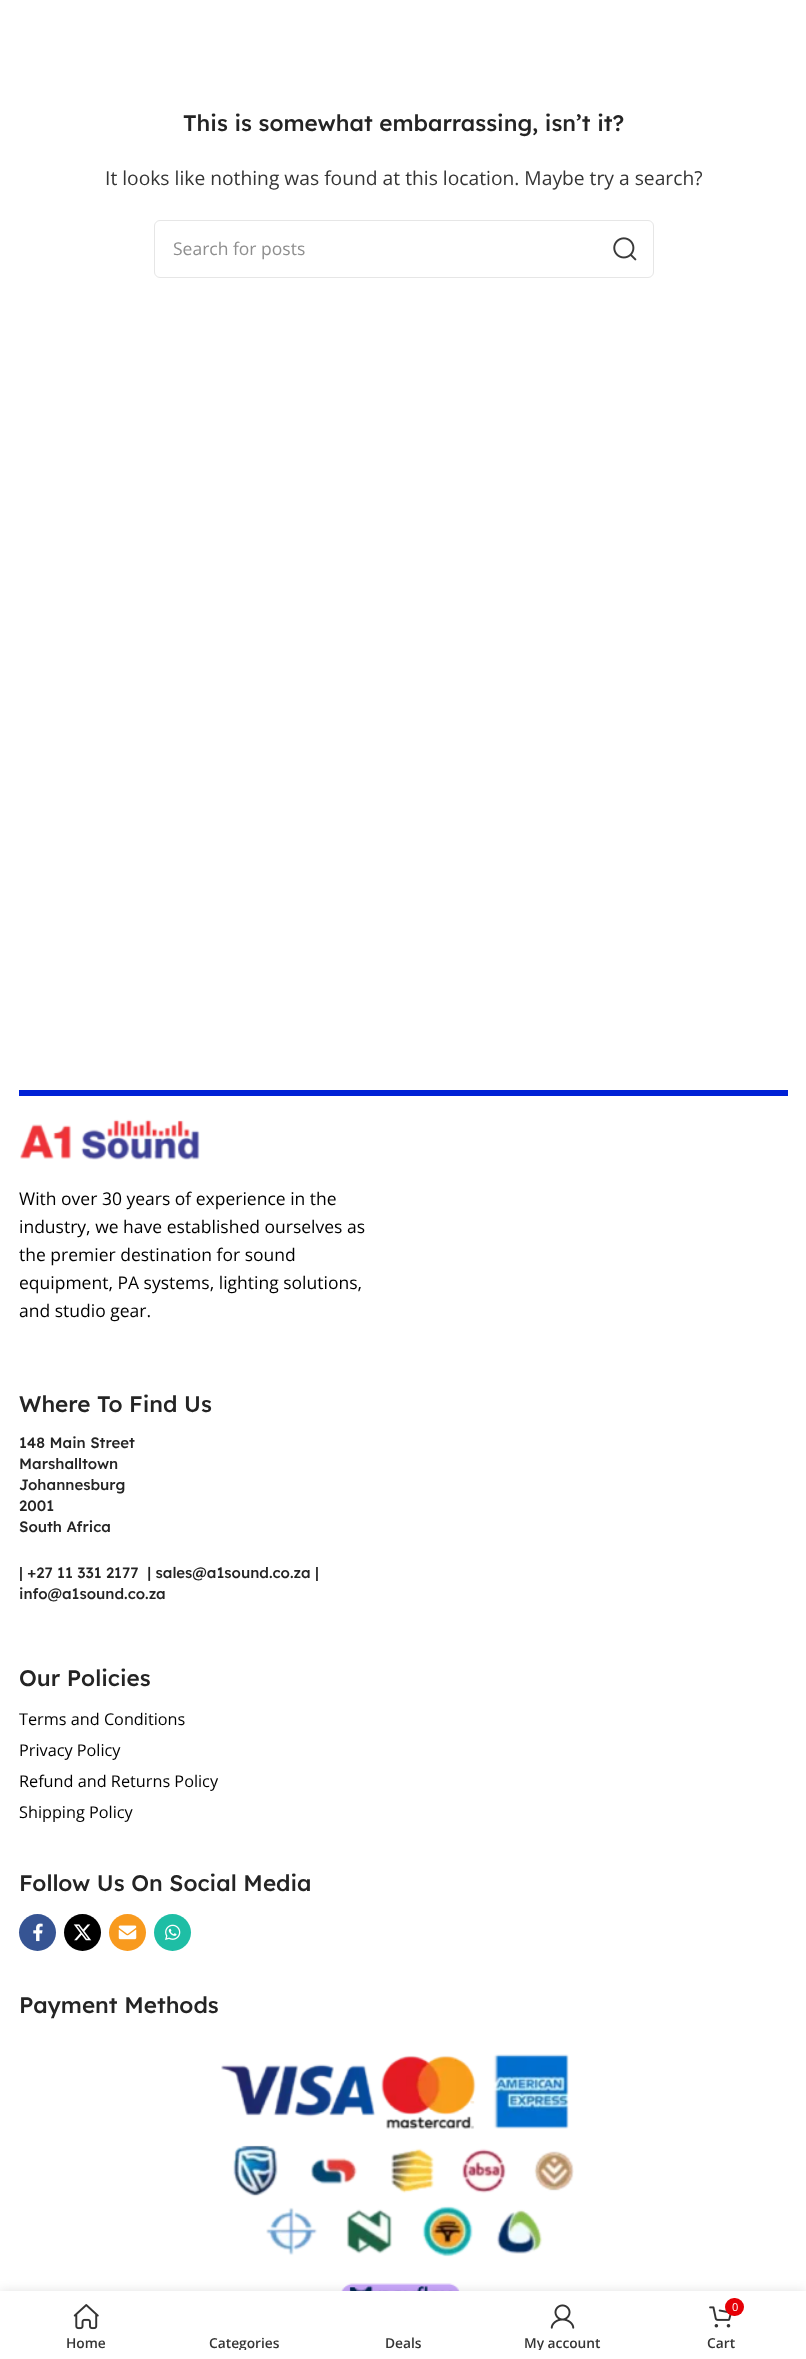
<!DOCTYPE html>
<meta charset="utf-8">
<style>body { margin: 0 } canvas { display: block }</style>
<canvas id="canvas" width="806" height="2359"></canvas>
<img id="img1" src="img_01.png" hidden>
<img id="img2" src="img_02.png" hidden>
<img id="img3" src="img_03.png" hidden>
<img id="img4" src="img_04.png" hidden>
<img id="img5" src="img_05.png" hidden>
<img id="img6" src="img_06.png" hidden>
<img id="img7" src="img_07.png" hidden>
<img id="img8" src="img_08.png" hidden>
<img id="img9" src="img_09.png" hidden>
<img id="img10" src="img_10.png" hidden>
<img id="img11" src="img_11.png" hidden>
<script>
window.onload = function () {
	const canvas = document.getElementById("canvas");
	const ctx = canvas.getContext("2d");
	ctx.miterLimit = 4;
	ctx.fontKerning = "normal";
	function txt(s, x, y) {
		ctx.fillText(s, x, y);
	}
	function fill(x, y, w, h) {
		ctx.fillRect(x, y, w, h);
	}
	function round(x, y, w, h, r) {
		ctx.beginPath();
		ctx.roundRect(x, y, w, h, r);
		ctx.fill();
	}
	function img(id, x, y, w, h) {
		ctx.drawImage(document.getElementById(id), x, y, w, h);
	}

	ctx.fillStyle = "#FFFFFF";
	fill(0, 0, 806, 2359);
	ctx.beginPath();
	ctx.roundRect(154.5, 220.5, 499, 57, 5.5);
	ctx.strokeStyle = "#E6E6E6";
	ctx.stroke();
	img("img1", 613, 237, 24, 24);
	ctx.fillStyle = "#0021D6";
	fill(19, 1090, 769, 6);
	img("img2", 20, 1119, 180, 41);
	ctx.fillStyle = "#365493";
	ctx.beginPath();
	ctx.arc(37.5, 1932.5, 18.5, 0, Math.PI * 2);
	ctx.fill();
	img("img3", 33, 1923, 10, 19);
	ctx.fillStyle = "#000000";
	ctx.beginPath();
	ctx.arc(82.5, 1932.5, 18.5, 0, Math.PI * 2);
	ctx.fill();
	img("img4", 73, 1924, 19, 17);
	ctx.fillStyle = "#F89A1E";
	ctx.beginPath();
	ctx.arc(127.5, 1932.5, 18.5, 0, Math.PI * 2);
	ctx.fill();
	img("img5", 118, 1925, 19, 15);
	ctx.fillStyle = "#1EBEA5";
	ctx.beginPath();
	ctx.arc(172.5, 1932.5, 18.5, 0, Math.PI * 2);
	ctx.fill();
	img("img6", 165, 1924, 16, 16);
	img("img7", 221, 2054, 353, 203);
	img("img8", 341, 2283, 119, 8);
	ctx.fillStyle = "rgba(0, 0, 0, 0.12)";
	ctx.filter = "blur(5.5px)";
	ctx.beginPath();
	ctx.rect(0, 2291, 806, 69);
	ctx.fill();
	ctx.filter = "none";
	ctx.fillStyle = "#FFFFFF";
	fill(0, 2291, 806, 68);
	img("img9", 73, 2304, 26, 26);
	img("img10", 550, 2304, 25, 25);
	img("img11", 709, 2306, 23, 22);
	ctx.fillStyle = "#E60006";
	round(725, 2298, 19, 18, 9);
	ctx.font = "500 22.5px Lexend Deca";
	ctx.fillStyle = "#242424";
	txt("This is somewhat embarrassing, isn’t it?", 183, 131);
	ctx.font = "19.25px Open Sans";
	ctx.fillStyle = "#353535";
	txt("It looks like nothing was found at this location. Maybe try a search?", 105, 185);
	ctx.font = "17.5px Open Sans";
	ctx.fillStyle = "#8E8E8E";
	txt("Search for posts", 173, 255);
	ctx.fillStyle = "#000000";
	txt("With over 30 years of experience in the", 19, 1205);
	txt("industry, we have established ourselves as", 19, 1233);
	txt("the premier destination for sound", 19, 1261);
	txt("equipment, PA systems, lighting solutions,", 19, 1289);
	txt("and studio gear.", 19, 1317);
	ctx.font = "500 22.5px Lexend Deca";
	ctx.fillStyle = "#242424";
	txt("Where To Find Us", 19, 1412);
	ctx.font = "500 15px Lexend Deca";
	txt("148 Main Street", 19, 1448);
	txt("Marshalltown", 19, 1469);
	txt("Johannesburg", 19, 1490);
	txt("2001", 19, 1511);
	txt("South Africa", 19, 1532);
	txt("| +27 11 331 2177  | sales@a1sound.co.za |", 19, 1578);
	txt("info@a1sound.co.za", 19, 1599);
	ctx.font = "500 22.5px Lexend Deca";
	txt("Our Policies", 19, 1686);
	ctx.font = "16.25px Open Sans";
	ctx.fillStyle = "#000000";
	txt("Terms and Conditions", 19, 1725);
	txt("Privacy Policy", 19, 1756);
	txt("Refund and Returns Policy", 19, 1787);
	txt("Shipping Policy", 19, 1818);
	ctx.font = "500 22.5px Lexend Deca";
	ctx.fillStyle = "#242424";
	txt("Follow Us On Social Media", 19, 1891);
	txt("Payment Methods", 19, 2013);
	ctx.font = "600 13.75px Open Sans";
	ctx.fillStyle = "#353535";
	txt("Home", 66, 2348);
	ctx.save();
	ctx.beginPath();
	ctx.rect(178, 2334, 133, 16);
	ctx.clip();
	txt("Categories", 209, 2348);
	ctx.restore();
	txt("Deals", 385, 2348);
	ctx.save();
	ctx.beginPath();
	ctx.rect(495, 2334, 134, 16);
	ctx.clip();
	txt("My account", 524, 2348);
	ctx.restore();
	ctx.font = "11px Open Sans";
	ctx.fillStyle = "#FFFFFF";
	txt("0", 732, 2311);
	ctx.font = "600 13.75px Open Sans";
	ctx.fillStyle = "#353535";
	txt("Cart", 707, 2348);
};
</script>
